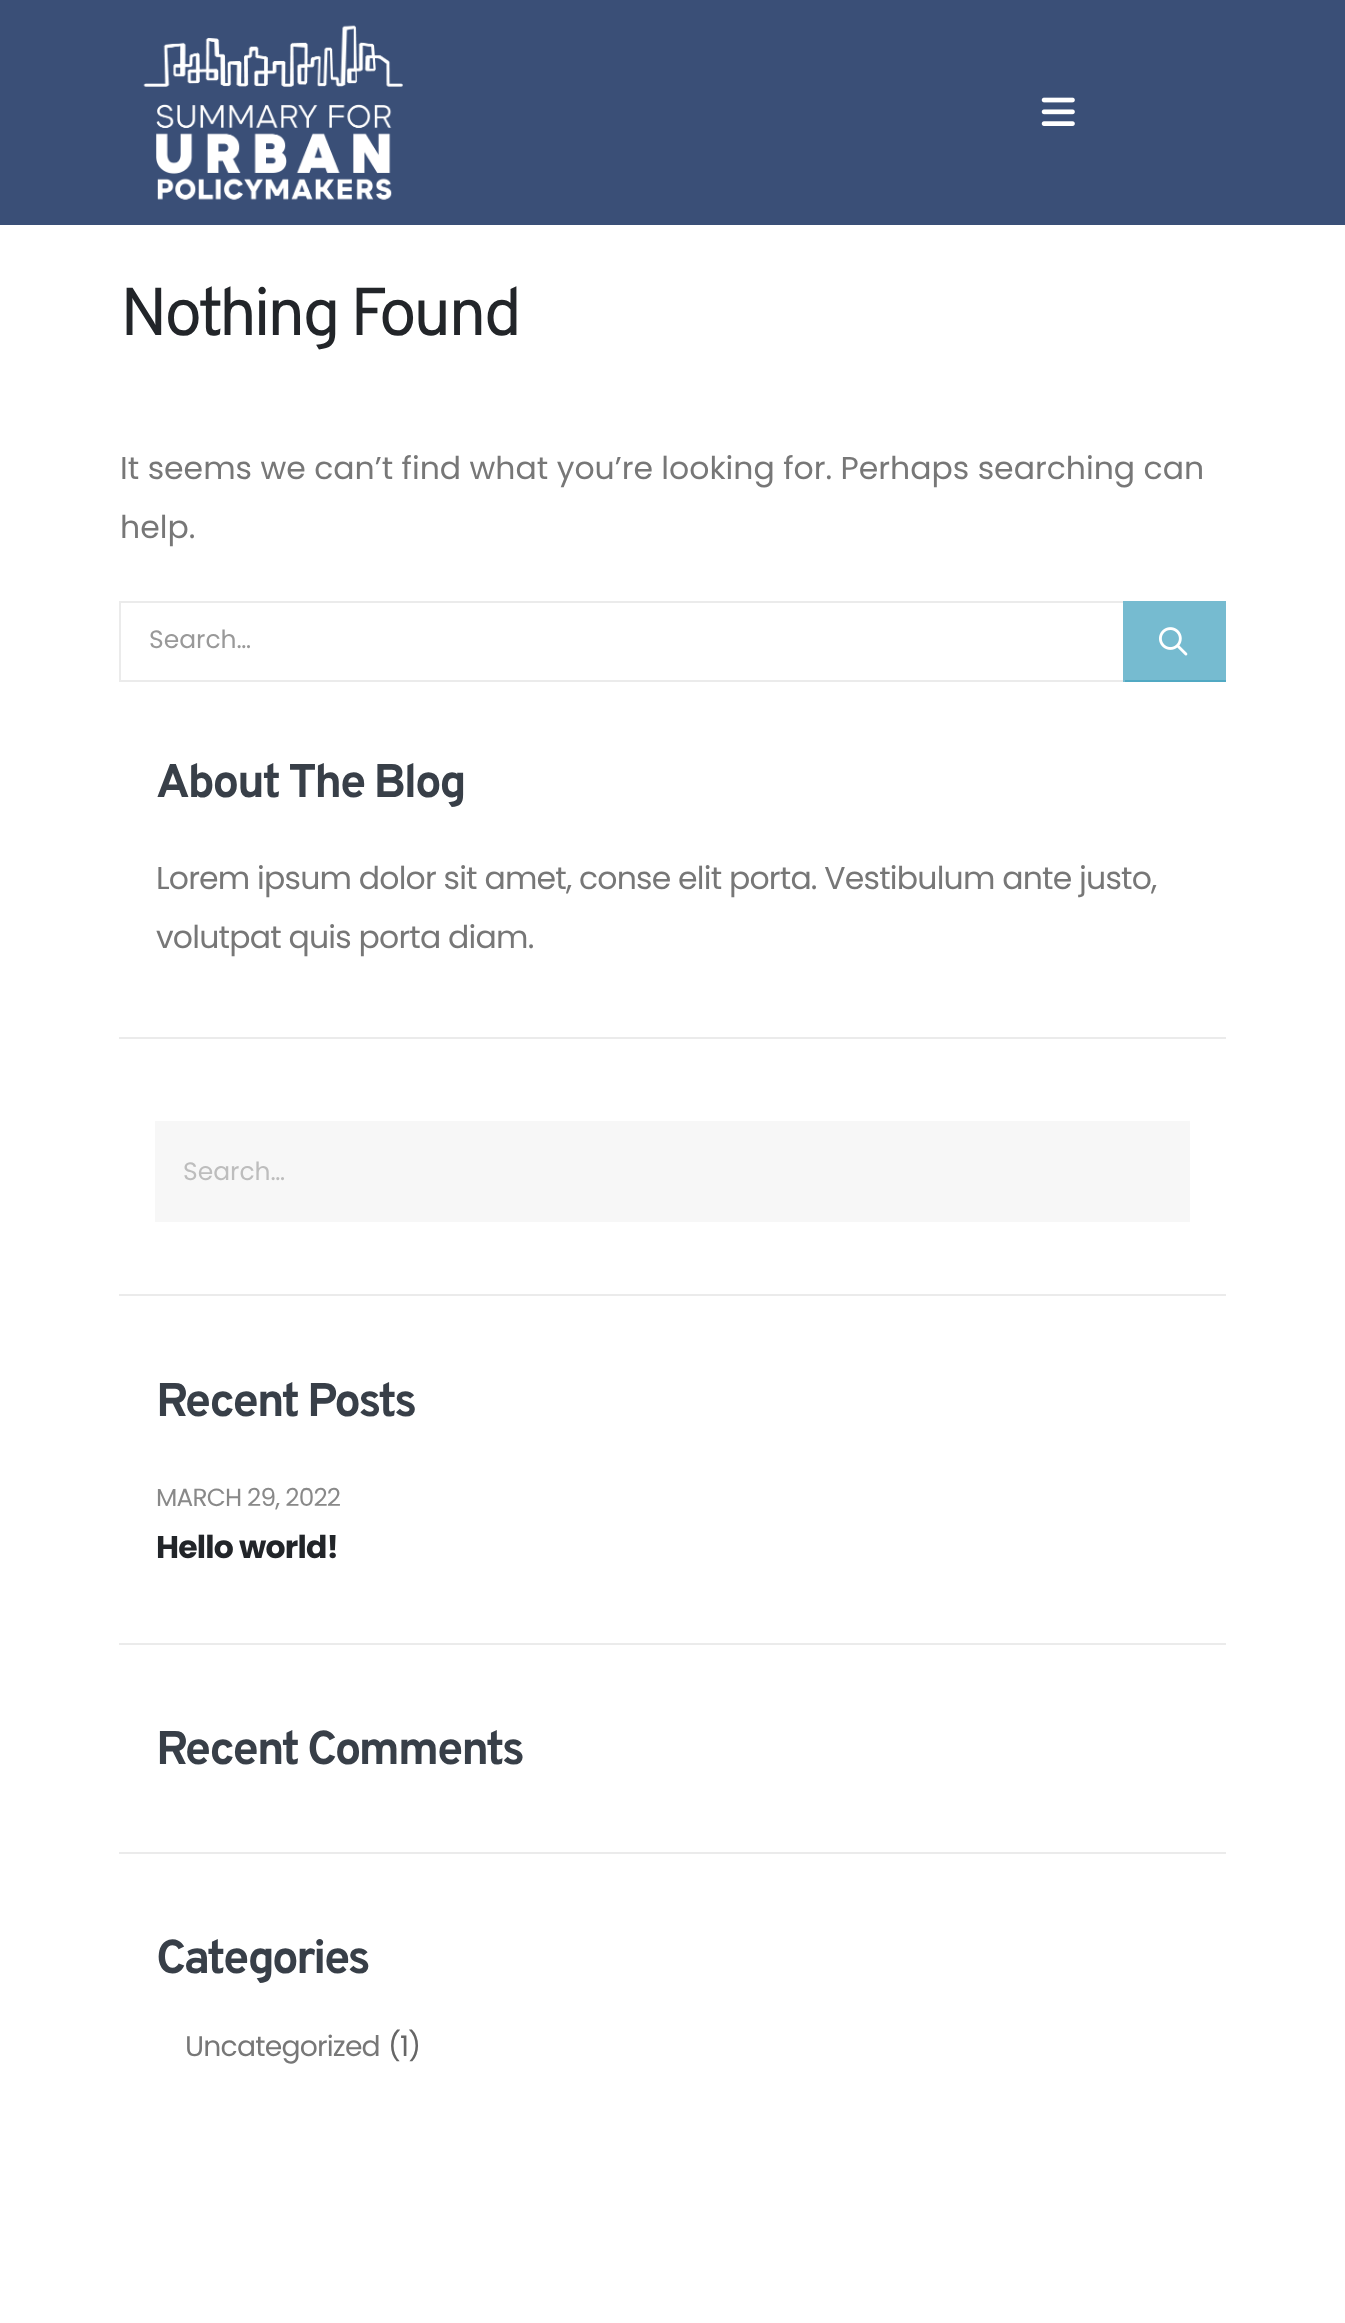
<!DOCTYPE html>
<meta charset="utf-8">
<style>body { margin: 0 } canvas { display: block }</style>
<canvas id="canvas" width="1345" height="2323"></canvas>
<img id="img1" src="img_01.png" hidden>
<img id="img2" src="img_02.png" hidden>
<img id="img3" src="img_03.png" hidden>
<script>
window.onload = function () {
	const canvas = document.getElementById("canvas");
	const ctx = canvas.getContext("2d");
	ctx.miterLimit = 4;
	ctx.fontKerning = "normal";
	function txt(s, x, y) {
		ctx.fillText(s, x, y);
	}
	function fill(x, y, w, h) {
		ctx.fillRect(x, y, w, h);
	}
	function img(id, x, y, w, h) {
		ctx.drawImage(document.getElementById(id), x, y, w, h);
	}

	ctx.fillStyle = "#FFFFFF";
	fill(0, 0, 1345, 2323);
	ctx.fillStyle = "#3A4F77";
	fill(0, 0, 1345, 225);
	img("img1", 143, 25, 260, 175);
	img("img2", 1041, 97, 34, 29);
	ctx.strokeStyle = "#EBEBEB";
	ctx.lineWidth = 2;
	ctx.strokeRect(120, 602, 1004, 79);
	ctx.fillStyle = "#76BBD0";
	fill(1125, 601, 101, 79);
	ctx.fillStyle = "#51A9C3";
	fill(1123, 680, 103, 2);
	ctx.fillStyle = "#76BBD0";
	fill(1123, 601, 2, 81);
	img("img3", 1159, 627, 29, 29);
	ctx.fillStyle = "#EBEBEB";
	fill(119, 1037, 1107, 2);
	ctx.fillStyle = "#F7F7F7";
	fill(155, 1121, 1035, 101);
	ctx.fillStyle = "#EBEBEB";
	fill(119, 1294, 1107, 2);
	fill(119, 1643, 1107, 2);
	fill(119, 1852, 1107, 2);
	ctx.letterSpacing = "-3.4px";
	ctx.font = "67.5px Overpass";
	ctx.fillStyle = "#222529";
	txt("Nothing Found", 120, 335);
	ctx.letterSpacing = "0px";
	ctx.font = "31.5px Poppins";
	ctx.fillStyle = "#777777";
	txt("It seems we can’t find what you’re looking for. Perhaps searching can", 120, 479);
	txt("help.", 120, 538);
	ctx.font = "25px Poppins";
	ctx.fillStyle = "#999999";
	txt("Search…", 149, 648);
	ctx.letterSpacing = "-2.4px";
	ctx.font = "bold 47.25px Overpass";
	ctx.fillStyle = "#383F48";
	txt("About The Blog", 156, 797);
	ctx.letterSpacing = "-0.8px";
	ctx.font = "31.5px Poppins";
	ctx.fillStyle = "#777777";
	txt("Lorem ipsum dolor sit amet, conse elit porta. Vestibulum ante justo,", 156, 889);
	txt("volutpat quis porta diam.", 156, 948);
	ctx.letterSpacing = "0px";
	ctx.font = "25px Poppins";
	ctx.fillStyle = "#BDBDBD";
	txt("Search…", 183, 1180);
	ctx.letterSpacing = "-2.4px";
	ctx.font = "bold 47.25px Overpass";
	ctx.fillStyle = "#383F48";
	txt("Recent Posts", 156, 1416);
	ctx.letterSpacing = "-0.8px";
	ctx.font = "24.75px Poppins";
	ctx.fillStyle = "#898989";
	txt("MARCH 29, 2022", 156, 1506);
	ctx.font = "bold 31.5px Poppins";
	ctx.fillStyle = "#222529";
	txt("Hello world!", 156, 1558);
	ctx.letterSpacing = "-2.4px";
	ctx.font = "bold 47.25px Overpass";
	ctx.fillStyle = "#383F48";
	txt("Recent Comments", 156, 1764);
	txt("Categories", 156, 1973);
	ctx.letterSpacing = "-0.8px";
	ctx.font = "28.25px Poppins";
	ctx.fillStyle = "#777777";
	txt("Uncategorized", 185, 2056);
	ctx.fillStyle = "#666666";
	txt("(1)", 388, 2056);
};
</script>
